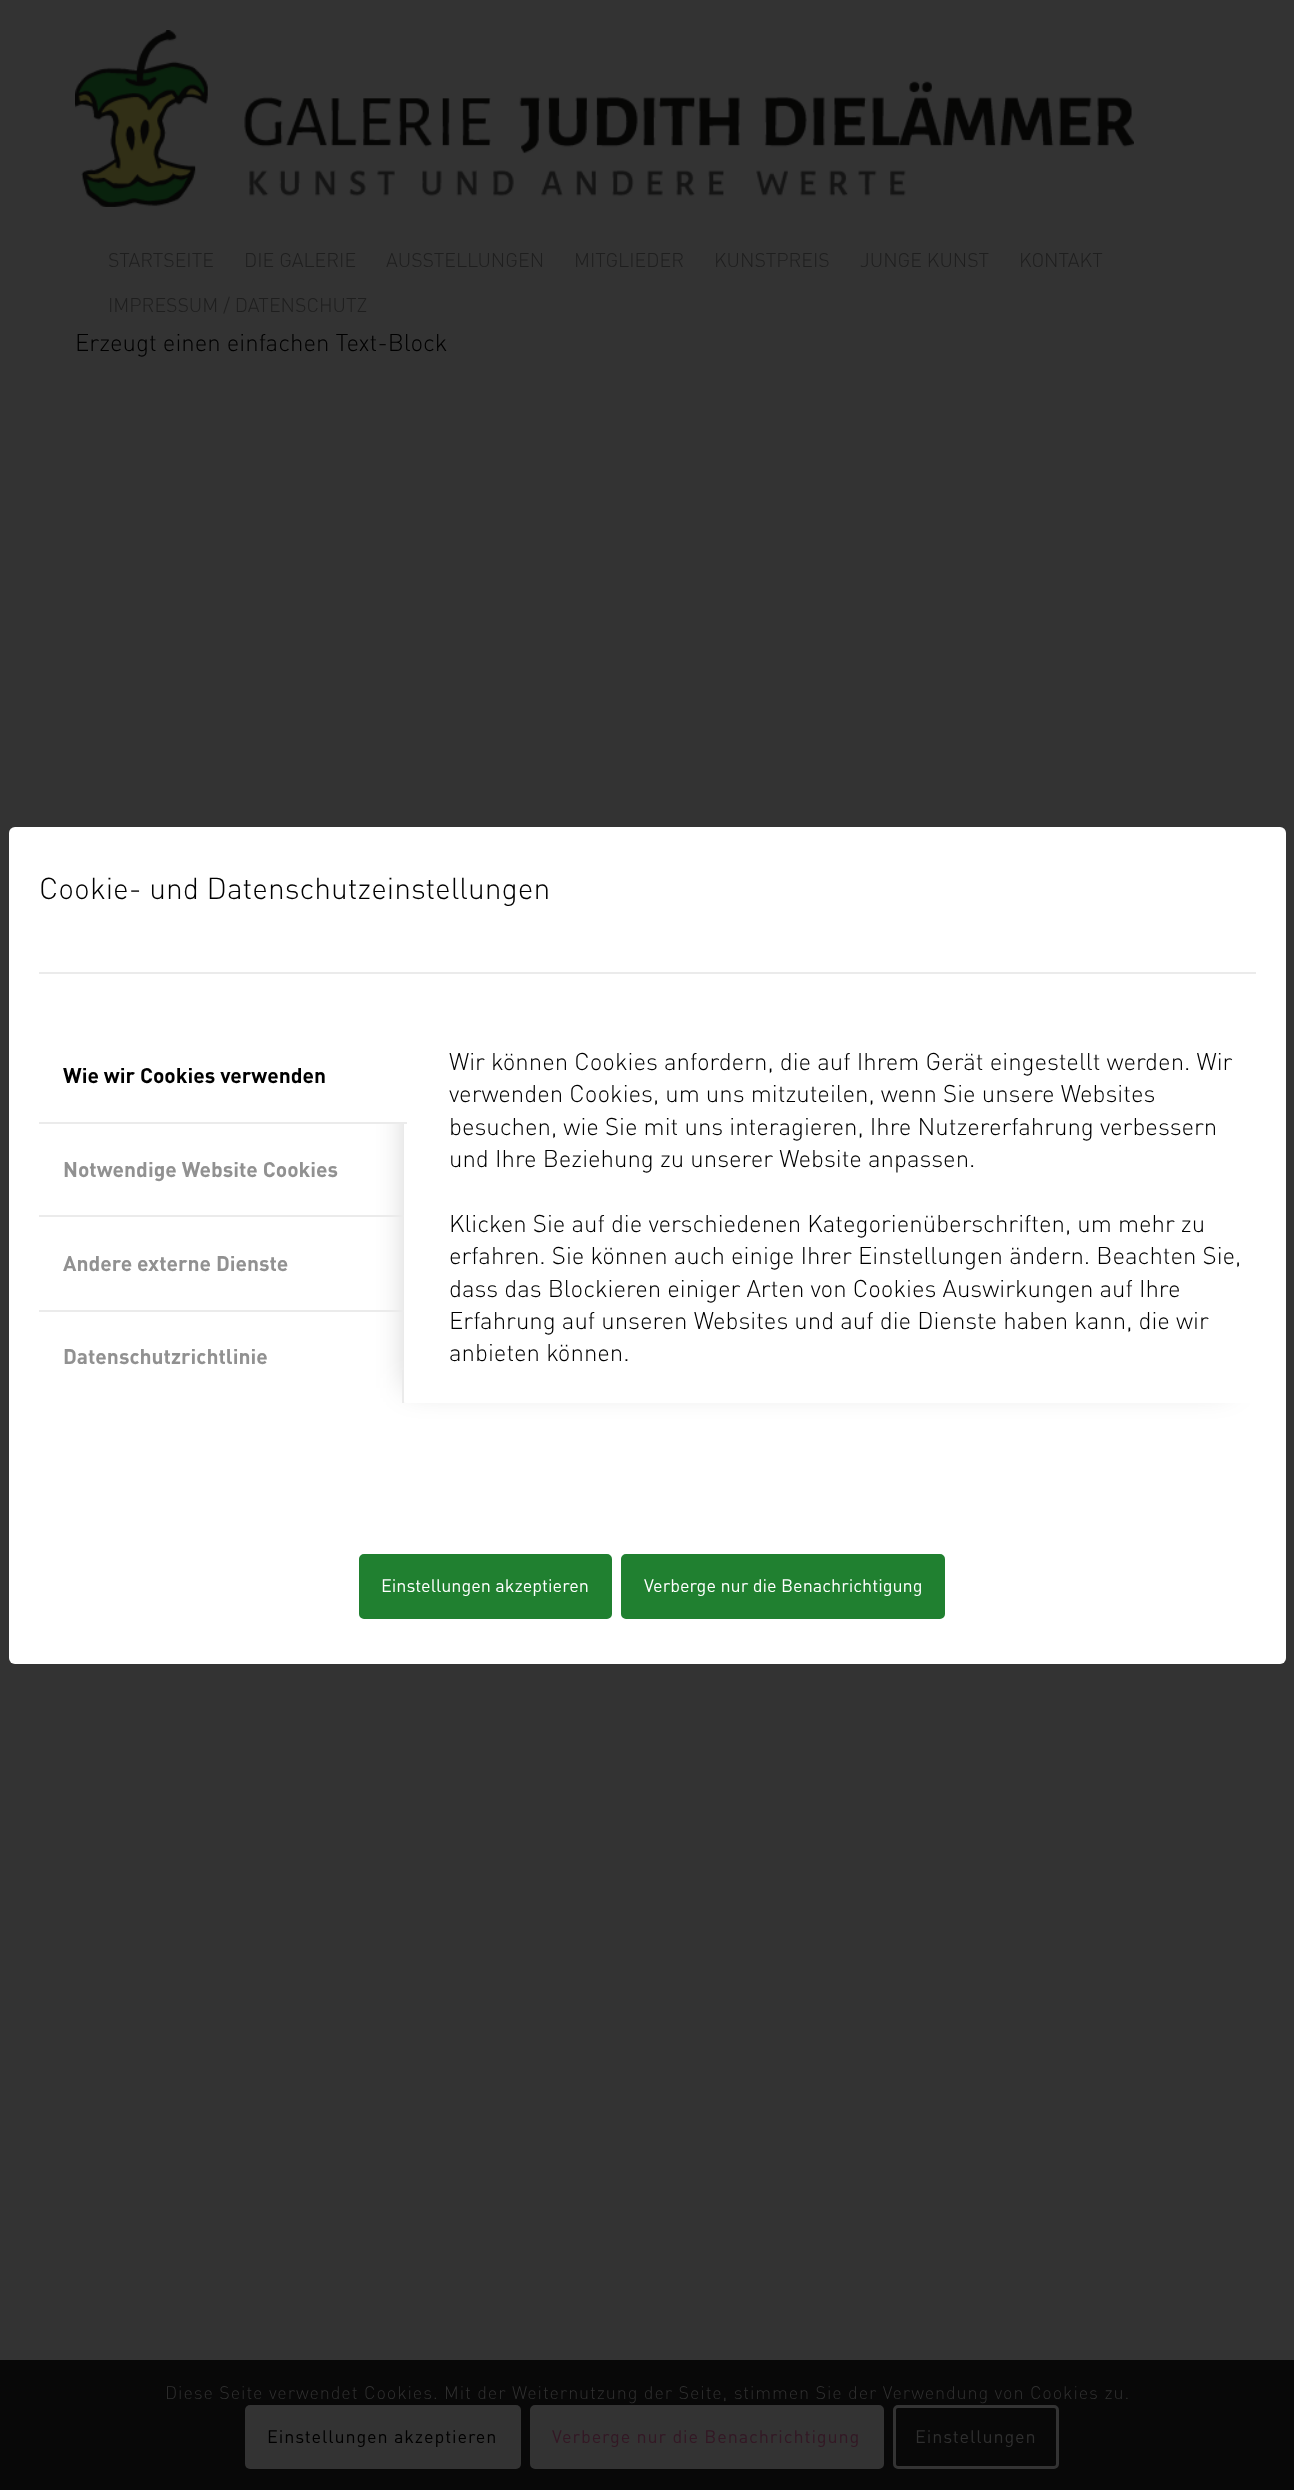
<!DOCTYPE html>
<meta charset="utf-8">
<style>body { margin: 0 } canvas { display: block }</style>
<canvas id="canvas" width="1294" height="2490"></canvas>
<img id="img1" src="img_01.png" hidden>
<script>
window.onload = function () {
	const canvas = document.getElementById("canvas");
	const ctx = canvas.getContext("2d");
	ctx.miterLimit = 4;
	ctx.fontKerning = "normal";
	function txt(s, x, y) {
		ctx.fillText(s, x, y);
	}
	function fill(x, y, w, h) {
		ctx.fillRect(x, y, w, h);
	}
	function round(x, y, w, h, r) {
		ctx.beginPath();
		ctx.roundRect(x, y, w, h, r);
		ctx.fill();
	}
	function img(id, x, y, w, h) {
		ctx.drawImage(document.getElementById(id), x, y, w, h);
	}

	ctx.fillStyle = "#333333";
	fill(0, 0, 1294, 2490);
	img("img1", 75, 30, 1059, 177);
	ctx.fillStyle = "#FFFFFF";
	round(9, 827, 1277, 837, 6);
	ctx.fillStyle = "#EBEBEB";
	fill(39, 972, 1217, 2);
	ctx.save();
	ctx.beginPath();
	ctx.rect(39, 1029, 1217, 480);
	ctx.clip();
	ctx.fillStyle = "rgba(0, 0, 0, 0.2)";
	ctx.filter = "blur(15px)";
	ctx.beginPath();
	ctx.rect(407, 1044, 822, 344);
	ctx.fill();
	ctx.filter = "none";
	ctx.restore();
	ctx.fillStyle = "#FFFFFF";
	round(404, 1029, 852, 374, 3);
	ctx.beginPath();
	ctx.roundRect(39, 1029, 368, 95, [3, 0, 0, 0]);
	ctx.fill();
	ctx.fillStyle = "#EBEBEB";
	fill(39, 1122, 368, 2);
	fill(39, 1215, 365, 2);
	fill(39, 1310, 365, 2);
	fill(402, 1370, 2, 33);
	ctx.fillStyle = "#208030";
	ctx.beginPath();
	ctx.roundRect(360.5, 1555.5, 250, 62, 3.5);
	ctx.fill();
	ctx.strokeStyle = "#208030";
	ctx.lineWidth = 3;
	ctx.stroke();
	ctx.beginPath();
	ctx.roundRect(622.5, 1555.5, 321, 62, 3.5);
	ctx.fill();
	ctx.stroke();
	ctx.fillStyle = "#080808";
	fill(0, 2360, 1294, 130);
	ctx.fillStyle = "#333333";
	round(245, 2405, 276, 64, 5);
	ctx.beginPath();
	ctx.roundRect(531.5, 2406.5, 351, 61, 3.5);
	ctx.fill();
	ctx.strokeStyle = "#333333";
	ctx.stroke();
	ctx.beginPath();
	ctx.roundRect(894.5, 2406.5, 163, 61, 3.5);
	ctx.stroke();
	ctx.font = "300 19.5px DIN";
	ctx.fillStyle = "#1E1E1E";
	txt("STARTSEITE", 108, 267);
	txt("DIE GALERIE", 244, 267);
	txt("AUSSTELLUNGEN", 386, 267);
	txt("MITGLIEDER", 574, 267);
	txt("KUNSTPREIS", 714, 267);
	txt("JUNGE KUNST", 860, 267);
	txt("KONTAKT", 1019, 267);
	txt("IMPRESSUM / DATENSCHUTZ", 108, 312);
	ctx.font = "300 24px DIN";
	ctx.fillStyle = "#000000";
	txt("Erzeugt einen einfachen Text-Block", 75, 351);
	ctx.font = "300 30px DIN";
	txt("Cookie- und Datenschutzeinstellungen", 39, 899);
	ctx.font = "bold 21px DIN";
	txt("Wie wir Cookies verwenden", 63, 1083);
	ctx.fillStyle = "#919191";
	txt("Notwendige Website Cookies", 63, 1177);
	txt("Andere externe Dienste", 63, 1271);
	txt("Datenschutzrichtlinie", 63, 1364);
	ctx.font = "300 24px DIN";
	ctx.fillStyle = "#000000";
	txt("Wir können Cookies anfordern, die auf Ihrem Gerät eingestellt werden. Wir", 449, 1070);
	txt("verwenden Cookies, um uns mitzuteilen, wenn Sie unsere Websites", 449, 1102);
	txt("besuchen, wie Sie mit uns interagieren, Ihre Nutzererfahrung verbessern", 449, 1135);
	txt("und Ihre Beziehung zu unserer Website anpassen.", 449, 1167);
	txt("Klicken Sie auf die verschiedenen Kategorienüberschriften, um mehr zu", 449, 1232);
	txt("erfahren. Sie können auch einige Ihrer Einstellungen ändern. Beachten Sie,", 449, 1264);
	txt("dass das Blockieren einiger Arten von Cookies Auswirkungen auf Ihre", 449, 1297);
	txt("Erfahrung auf unseren Websites und auf die Dienste haben kann, die wir", 449, 1329);
	txt("anbieten können.", 449, 1361);
	ctx.font = "18px DIN";
	ctx.fillStyle = "#FFFFFF";
	txt("Einstellungen akzeptieren", 381, 1592);
	txt("Verberge nur die Benachrichtigung", 644, 1592);
	ctx.letterSpacing = "0.9px";
	ctx.font = "300 18px DIN";
	ctx.fillStyle = "#2F2F2F";
	txt("Diese Seite verwendet Cookies. Mit der Weiternutzung der Seite, stimmen Sie der Verwendung von Cookies zu.", 165, 2399);
	ctx.font = "18px DIN";
	ctx.fillStyle = "#000000";
	txt("Einstellungen akzeptieren", 267, 2443);
	ctx.fillStyle = "#331724";
	txt("Verberge nur die Benachrichtigung", 552, 2443);
	ctx.fillStyle = "#2F2F2F";
	txt("Einstellungen", 915, 2443);
};
</script>
